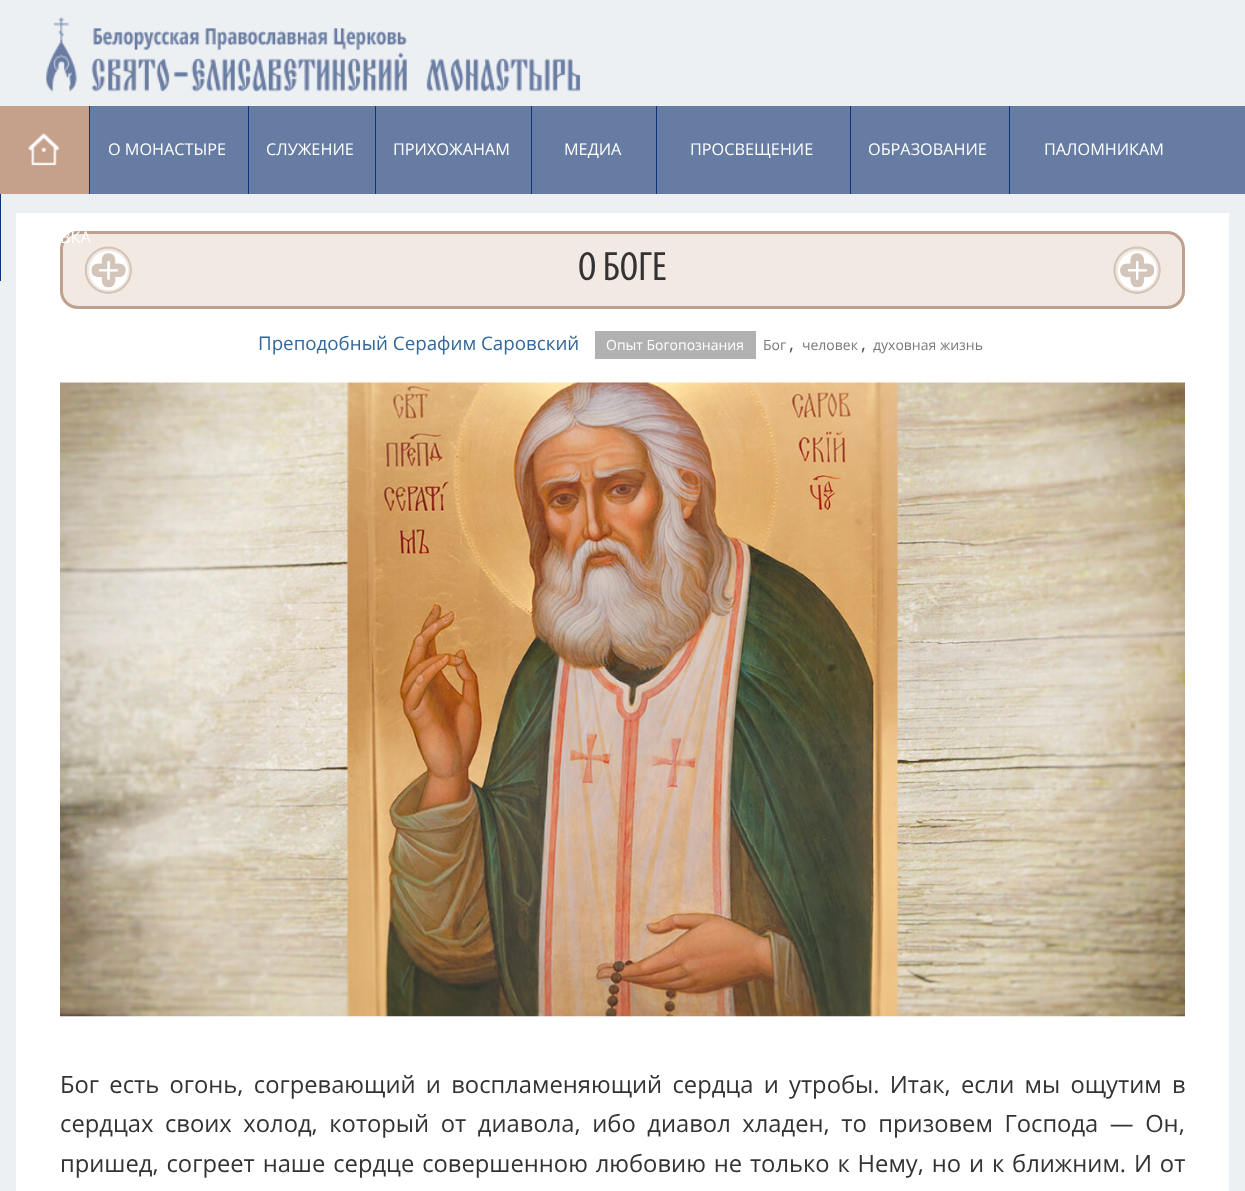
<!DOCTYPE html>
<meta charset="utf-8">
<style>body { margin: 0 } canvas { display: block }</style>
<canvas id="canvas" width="1245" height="1191"></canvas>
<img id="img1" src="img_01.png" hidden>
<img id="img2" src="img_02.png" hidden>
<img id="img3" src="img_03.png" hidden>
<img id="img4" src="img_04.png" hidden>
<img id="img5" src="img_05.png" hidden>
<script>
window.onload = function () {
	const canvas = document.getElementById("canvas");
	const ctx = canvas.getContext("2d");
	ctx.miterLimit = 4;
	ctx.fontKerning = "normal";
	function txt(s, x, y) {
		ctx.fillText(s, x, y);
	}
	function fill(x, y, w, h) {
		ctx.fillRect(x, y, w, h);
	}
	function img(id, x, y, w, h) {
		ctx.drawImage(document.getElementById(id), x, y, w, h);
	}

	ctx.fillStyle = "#EDF0F3";
	fill(0, 0, 1245, 1191);
	img("img1", 46, 17, 535, 75);
	ctx.fillStyle = "#677CA3";
	fill(90, 106, 1155, 88);
	ctx.fillStyle = "#C5A18C";
	fill(0, 106, 89, 88);
	img("img2", 28, 133, 32, 33);
	ctx.fillStyle = "#09367A";
	fill(89, 106, 1, 88);
	fill(248, 106, 1, 88);
	fill(375, 106, 1, 88);
	fill(531, 106, 1, 88);
	fill(656, 106, 1, 88);
	fill(850, 106, 1, 88);
	fill(1009, 106, 1, 88);
	fill(0, 194, 1, 87);
	ctx.fillStyle = "#FFFFFF";
	fill(16, 213, 1213, 978);
	ctx.fillStyle = "#F2E9E2";
	ctx.beginPath();
	ctx.roundRect(61.5, 232.5, 1122, 75, 16.5);
	ctx.fill();
	ctx.strokeStyle = "#BEA18E";
	ctx.lineWidth = 3;
	ctx.stroke();
	img("img3", 84, 246, 48, 48);
	img("img4", 1113, 246, 48, 48);
	ctx.fillStyle = "#B1B1B1";
	fill(595, 331, 161, 28);
	img("img5", 60, 382, 1125, 635);
	ctx.font = "16.25px Open Sans";
	ctx.fillStyle = "#FFFFFF";
	txt("О МОНАСТЫРЕ", 108, 155);
	txt("CЛУЖЕНИЕ", 266, 155);
	txt("ПРИХОЖАНАМ", 393, 155);
	txt("МЕДИА", 564, 155);
	txt("ПРОСВЕЩЕНИЕ", 690, 155);
	txt("ОБРАЗОВАНИЕ", 868, 155);
	txt("ПАЛОМНИКАМ", 1044, 155);
	txt("ВКА", 60, 243);
	ctx.font = "41px Myriad";
	ctx.fillStyle = "#333333";
	txt("О БОГЕ", 578, 280);
	ctx.font = "18.75px Open Sans";
	ctx.fillStyle = "#336699";
	txt("Преподобный Серафим Саровский", 258, 350);
	ctx.font = "14px Open Sans";
	ctx.fillStyle = "#FFFFFF";
	txt("Опыт Богопознания", 606, 350);
	ctx.fillStyle = "#797979";
	txt("Бог", 763, 350);
	ctx.font = "18.75px Open Sans";
	ctx.fillStyle = "#4F4F4F";
	txt(",", 789, 350);
	ctx.font = "14px Open Sans";
	ctx.fillStyle = "#797979";
	txt("человек", 802, 350);
	ctx.font = "18.75px Open Sans";
	ctx.fillStyle = "#4F4F4F";
	txt(",", 861, 350);
	ctx.font = "14px Open Sans";
	ctx.fillStyle = "#797979";
	txt("духовная жизнь", 873, 350);
	ctx.wordSpacing = "4.1px";
	ctx.font = "23.75px Open Sans";
	ctx.fillStyle = "#333333";
	txt("Бог есть огонь, согревающий и воспламеняющий сердца и утробы. Итак, если мы ощутим в", 60, 1093);
	ctx.wordSpacing = "5.4px";
	txt("сердцах своих холод, который от диавола, ибо диавол хладен, то призовем Господа — Он,", 60, 1132);
	ctx.wordSpacing = "1.7px";
	txt("пришед, согреет наше сердце совершенною любовию не только к Нему, но и к ближним. И от", 60, 1172);
};
</script>
